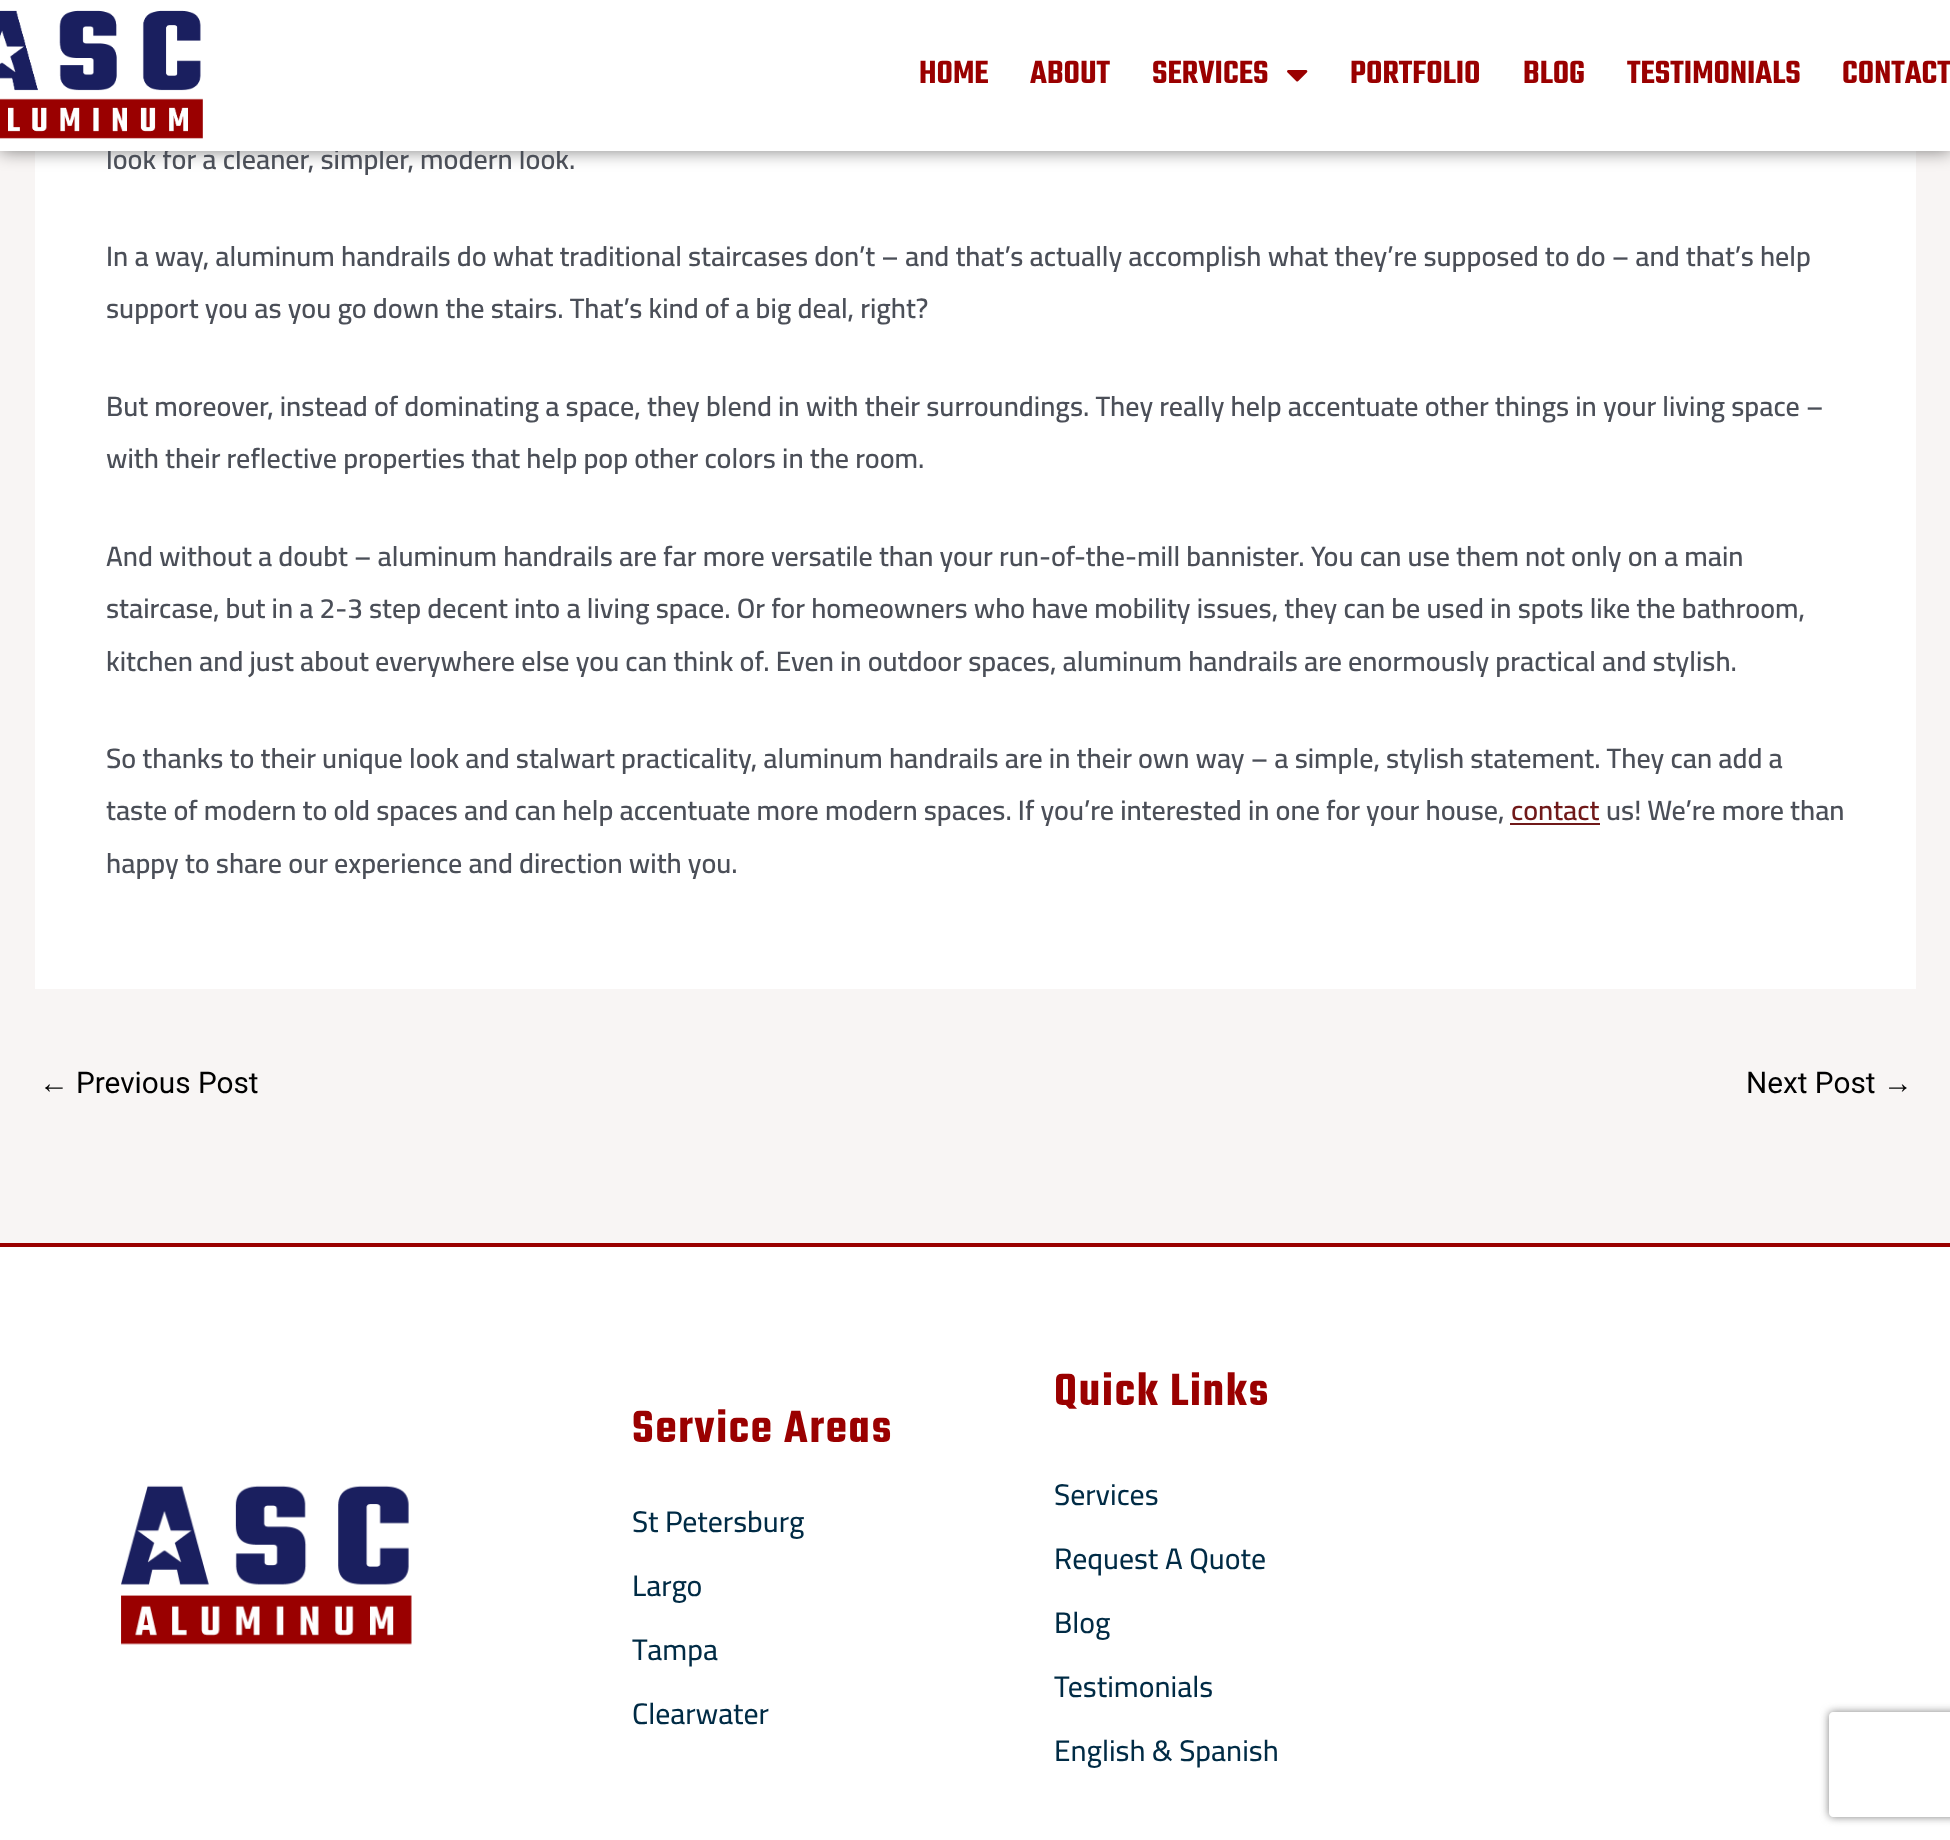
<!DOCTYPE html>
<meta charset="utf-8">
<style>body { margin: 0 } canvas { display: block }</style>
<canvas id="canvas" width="1950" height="1840"></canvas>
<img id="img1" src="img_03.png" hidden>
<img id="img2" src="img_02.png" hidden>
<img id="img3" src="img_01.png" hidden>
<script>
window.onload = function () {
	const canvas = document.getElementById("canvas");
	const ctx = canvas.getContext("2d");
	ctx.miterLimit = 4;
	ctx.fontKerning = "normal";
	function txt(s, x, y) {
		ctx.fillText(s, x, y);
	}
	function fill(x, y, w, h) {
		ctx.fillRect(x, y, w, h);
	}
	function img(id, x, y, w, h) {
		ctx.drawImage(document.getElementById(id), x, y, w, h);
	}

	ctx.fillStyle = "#F8F5F4";
	fill(0, 0, 1950, 1840);
	ctx.fillStyle = "#FFFFFF";
	fill(35, 151, 1881, 838);
	ctx.fillStyle = "rgba(0, 0, 0, 0.5)";
	ctx.filter = "blur(9px)";
	ctx.beginPath();
	ctx.rect(0, 0, 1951, 151);
	ctx.fill();
	ctx.filter = "none";
	ctx.fillStyle = "#701919";
	fill(1510, 823, 90, 2);
	ctx.fillStyle = "#FFFFFF";
	fill(0, 1247, 1950, 593);
	ctx.fillStyle = "#9A0000";
	fill(0, 1243, 1950, 4);
	img("img1", 121, 1485, 291, 160);
	ctx.save();
	ctx.beginPath();
	ctx.moveTo(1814, 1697);
	ctx.lineTo(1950, 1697);
	ctx.lineTo(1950, 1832);
	ctx.lineTo(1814, 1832);
	ctx.closePath();
	ctx.moveTo(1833, 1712);
	ctx.lineTo(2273, 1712);
	ctx.bezierCurveTo(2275, 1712, 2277, 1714, 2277, 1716);
	ctx.lineTo(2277, 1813);
	ctx.bezierCurveTo(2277, 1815, 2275, 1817, 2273, 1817);
	ctx.lineTo(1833, 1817);
	ctx.bezierCurveTo(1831, 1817, 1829, 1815, 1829, 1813);
	ctx.lineTo(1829, 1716);
	ctx.bezierCurveTo(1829, 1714, 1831, 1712, 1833, 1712);
	ctx.closePath();
	ctx.clip("evenodd");
	ctx.fillStyle = "#808080";
	ctx.filter = "blur(4.5px)";
	ctx.beginPath();
	ctx.roundRect(1829, 1712, 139, 105, 4);
	ctx.fill();
	ctx.filter = "none";
	ctx.restore();
	ctx.font = "600 28px Cairo";
	ctx.fillStyle = "#4B4F58";
	txt("look for a cleaner, simpler, modern look.", 106, 169);
	ctx.fillStyle = "#FFFFFF";
	fill(0, 0, 1950, 151);
	ctx.font = "600 35px Teko";
	ctx.fillStyle = "#9A0000";
	txt("CONTACT", 1842, 83);
	txt("TESTIMONIALS", 1627, 83);
	txt("BLOG", 1523, 83);
	txt("PORTFOLIO", 1350, 83);
	img("img2", 1287, 70, 21, 12);
	txt("SERVICES", 1152, 83);
	txt("ABOUT", 1030, 83);
	txt("HOME", 919, 83);
	img("img3", 0, 10, 203, 129);
	ctx.font = "600 28px Cairo";
	ctx.fillStyle = "#4B4F58";
	txt("In a way, aluminum handrails do what traditional staircases don’t – and that’s actually accomplish what they’re supposed to do – and that’s help", 106, 266);
	txt("support you as you go down the stairs. That’s kind of a big deal, right?", 106, 318);
	txt("But moreover, instead of dominating a space, they blend in with their surroundings. They really help accentuate other things in your living space –", 106, 416);
	txt("with their reflective properties that help pop other colors in the room.", 106, 468);
	txt("And without a doubt – aluminum handrails are far more versatile than your run-of-the-mill bannister. You can use them not only on a main", 106, 566);
	txt("staircase, but in a 2-3 step decent into a living space. Or for homeowners who have mobility issues, they can be used in spots like the bathroom,", 106, 618);
	txt("kitchen and just about everywhere else you can think of. Even in outdoor spaces, aluminum handrails are enormously practical and stylish.", 106, 671);
	txt("So thanks to their unique look and stalwart practicality, aluminum handrails are in their own way – a simple, stylish statement. They can add a", 106, 768);
	txt("taste of modern to old spaces and can help accentuate more modern spaces. If you’re interested in one for your house,", 106, 820);
	ctx.fillStyle = "#701919";
	txt("contact", 1511, 820);
	ctx.fillStyle = "#4B4F58";
	txt("us! We’re more than", 1606, 820);
	txt("happy to share our experience and direction with you.", 106, 873);
	ctx.font = "29.75px Liberation Sans";
	ctx.fillStyle = "#000000";
	txt("←", 39, 1093);
	ctx.font = "29.75px Roboto";
	txt("Previous Post", 76, 1093);
	txt("Next Post", 1746, 1093);
	ctx.font = "29.75px Liberation Sans";
	txt("→", 1883, 1093);
	ctx.letterSpacing = "1.75px";
	ctx.font = "600 49px Teko";
	ctx.fillStyle = "#9A0000";
	txt("Service Areas", 632, 1442);
	ctx.letterSpacing = "0px";
	ctx.font = "500 29.75px Cairo";
	ctx.fillStyle = "#002B45";
	txt("St Petersburg", 632, 1532);
	txt("Largo", 632, 1596);
	txt("Tampa", 632, 1660);
	txt("Clearwater", 632, 1724);
	ctx.letterSpacing = "1.75px";
	ctx.font = "600 49px Teko";
	ctx.fillStyle = "#9A0000";
	txt("Quick Links", 1054, 1405);
	ctx.letterSpacing = "0px";
	ctx.font = "500 29.75px Cairo";
	ctx.fillStyle = "#002B45";
	txt("Services", 1054, 1505);
	txt("Request A Quote", 1054, 1569);
	txt("Blog", 1054, 1633);
	txt("Testimonials", 1054, 1697);
	txt("English & Spanish", 1054, 1761);
};
</script>
